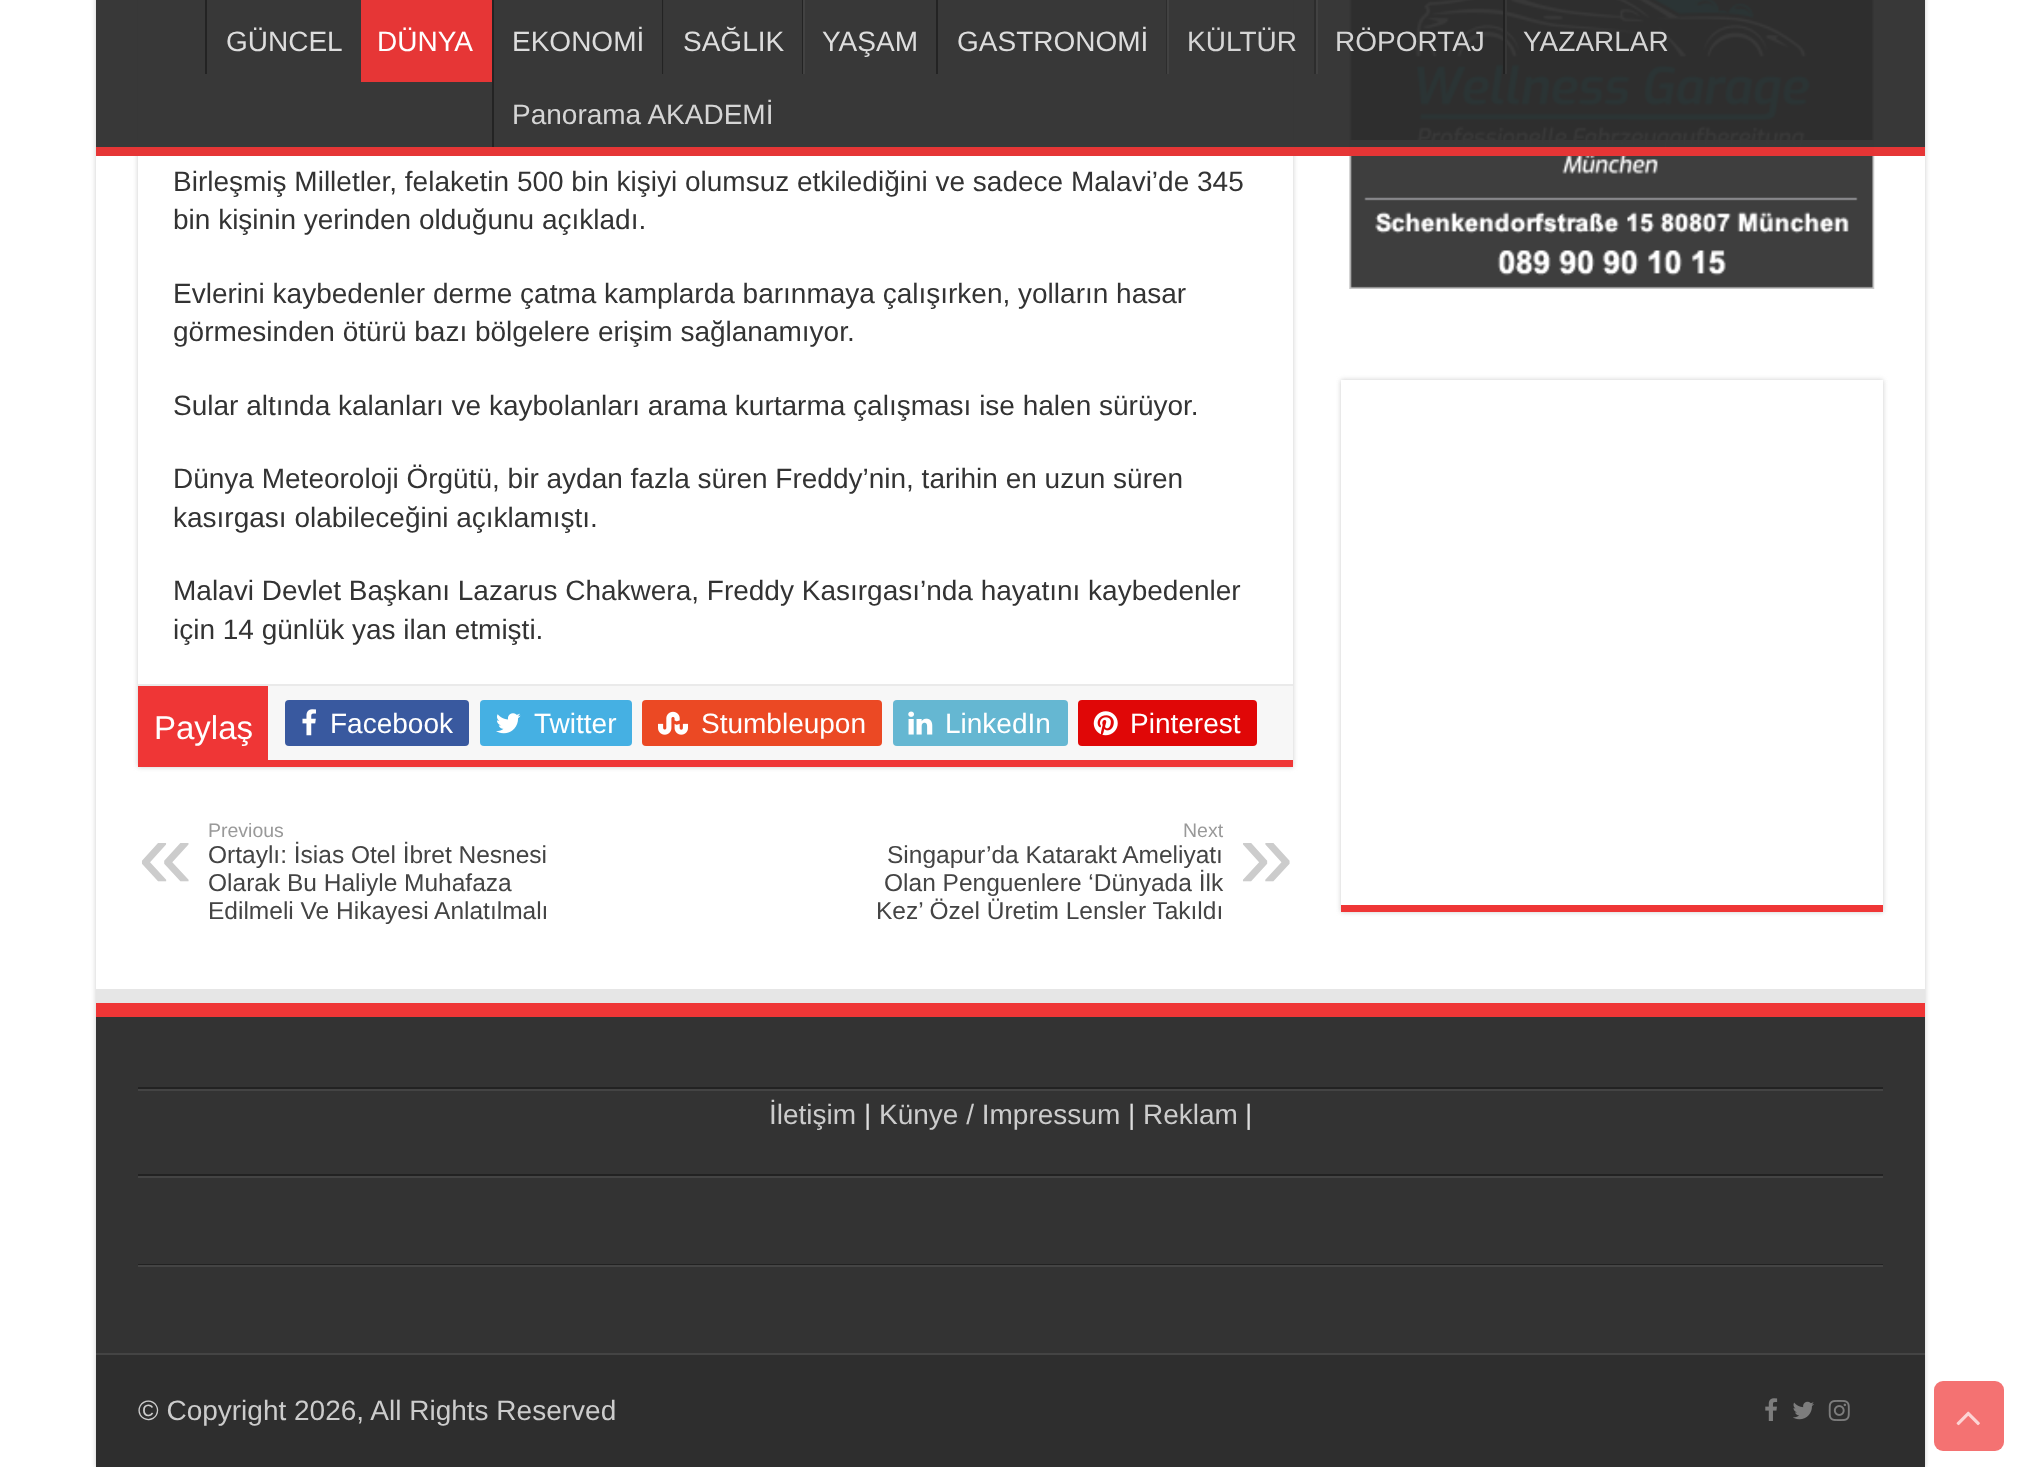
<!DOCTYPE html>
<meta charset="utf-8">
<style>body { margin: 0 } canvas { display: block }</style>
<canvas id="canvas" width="2021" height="1467"></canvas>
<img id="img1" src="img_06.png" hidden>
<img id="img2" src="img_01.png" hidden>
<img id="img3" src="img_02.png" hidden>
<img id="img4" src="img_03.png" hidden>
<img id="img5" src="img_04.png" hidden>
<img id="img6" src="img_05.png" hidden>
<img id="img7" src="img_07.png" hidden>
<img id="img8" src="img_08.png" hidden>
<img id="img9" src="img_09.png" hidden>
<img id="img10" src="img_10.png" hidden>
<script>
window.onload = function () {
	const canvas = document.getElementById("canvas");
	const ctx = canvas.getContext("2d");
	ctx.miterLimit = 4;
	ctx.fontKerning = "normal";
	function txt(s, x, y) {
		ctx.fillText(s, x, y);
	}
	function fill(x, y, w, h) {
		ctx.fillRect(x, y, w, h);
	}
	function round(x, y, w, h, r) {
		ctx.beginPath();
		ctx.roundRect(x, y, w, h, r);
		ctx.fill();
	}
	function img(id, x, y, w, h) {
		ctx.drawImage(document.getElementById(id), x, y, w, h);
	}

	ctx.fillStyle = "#FFFFFF";
	fill(0, 0, 2021, 1467);
	ctx.fillStyle = "#CACACA";
	ctx.filter = "blur(2.5px)";
	ctx.beginPath();
	ctx.rect(96, -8, 1829, 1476);
	ctx.fill();
	ctx.filter = "none";
	ctx.fillStyle = "#FFFFFF";
	fill(96, 0, 1829, 989);
	ctx.fillStyle = "#CACACA";
	ctx.filter = "blur(2.5px)";
	ctx.beginPath();
	ctx.rect(138, -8, 1155, 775);
	ctx.fill();
	ctx.filter = "none";
	ctx.fillStyle = "#FFFFFF";
	fill(138, 0, 1155, 684);
	img("img1", 1349, 0, 526, 289);
	ctx.fillStyle = "rgba(45, 45, 45, 0.95)";
	fill(96, 0, 1829, 156);
	ctx.save();
	ctx.beginPath();
	ctx.rect(96, 0, 1829, 147);
	ctx.clip();
	ctx.fillStyle = "rgba(57, 57, 57, 0.95)";
	ctx.beginPath();
	ctx.moveTo(-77, -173);
	ctx.lineTo(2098, -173);
	ctx.lineTo(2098, 320);
	ctx.lineTo(-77, 320);
	ctx.closePath();
	ctx.moveTo(94, -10);
	ctx.lineTo(1923, -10);
	ctx.bezierCurveTo(1924, -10, 1925, -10, 1925, -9);
	ctx.lineTo(1925, 138);
	ctx.bezierCurveTo(1925, 139, 1924, 140, 1923, 140);
	ctx.lineTo(94, 140);
	ctx.bezierCurveTo(94, 140, 93, 139, 93, 138);
	ctx.lineTo(93, -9);
	ctx.bezierCurveTo(93, -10, 94, -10, 94, -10);
	ctx.closePath();
	ctx.fill("evenodd");
	ctx.restore();
	ctx.fillStyle = "rgba(239, 54, 54, 0.95)";
	fill(96, 147, 1829, 9);
	ctx.fillStyle = "rgba(34, 34, 34, 0.95)";
	fill(205, 0, 2, 74);
	ctx.fillStyle = "rgba(239, 54, 54, 0.95)";
	fill(361, 0, 131, 82);
	ctx.fillStyle = "rgba(34, 34, 34, 0.95)";
	fill(492, 0, 2, 74);
	fill(662, 0, 2, 74);
	ctx.fillStyle = "rgba(56, 56, 56, 0.95)";
	fill(663, 0, 1, 74);
	ctx.fillStyle = "rgba(34, 34, 34, 0.95)";
	fill(802, 0, 1, 74);
	ctx.fillStyle = "#424242";
	fill(803, 0, 2, 74);
	ctx.fillStyle = "rgba(34, 34, 34, 0.95)";
	fill(936, 0, 2, 74);
	ctx.fillStyle = "#2D2D2D";
	fill(1166, 0, 1, 74);
	ctx.fillStyle = "#424242";
	fill(1167, 0, 2, 74);
	ctx.fillStyle = "#2D2D2D";
	fill(1314, 0, 2, 74);
	ctx.fillStyle = "#424242";
	fill(1316, 0, 2, 74);
	ctx.fillStyle = "rgba(34, 34, 34, 0.95)";
	fill(1503, 0, 2, 74);
	ctx.fillStyle = "rgba(56, 56, 56, 0.95)";
	fill(1505, 0, 2, 74);
	ctx.fillStyle = "rgba(34, 34, 34, 0.95)";
	fill(492, 74, 2, 73);
	ctx.fillStyle = "#EF3636";
	fill(138, 760, 1155, 7);
	ctx.fillStyle = "#F7F7F7";
	fill(268, 686, 1025, 74);
	ctx.fillStyle = "#EAEAEA";
	fill(138, 684, 1155, 2);
	ctx.fillStyle = "#EF3636";
	fill(138, 686, 130, 74);
	ctx.fillStyle = "#39599F";
	round(285, 700, 184, 46, 4);
	img("img2", 302, 709, 14, 27);
	ctx.fillStyle = "#45B0E3";
	round(480, 700, 152, 46, 4);
	img("img3", 496, 713, 25, 21);
	ctx.fillStyle = "#EB4924";
	round(642, 700, 240, 46, 4);
	img("img4", 658, 711, 30, 24);
	ctx.fillStyle = "#65B7D2";
	round(893, 700, 175, 46, 4);
	img("img5", 908, 711, 25, 24);
	ctx.fillStyle = "#E00707";
	round(1078, 700, 179, 46, 4);
	img("img6", 1093, 711, 25, 25);
	ctx.fillStyle = "#CACACA";
	ctx.filter = "blur(2.5px)";
	ctx.beginPath();
	ctx.rect(1341, 380, 542, 532);
	ctx.fill();
	ctx.filter = "none";
	ctx.fillStyle = "#FFFFFF";
	fill(1341, 380, 542, 525);
	ctx.fillStyle = "#EF3636";
	fill(1341, 905, 542, 7);
	ctx.fillStyle = "#E6E6E6";
	ctx.beginPath();
	ctx.moveTo(96, 989);
	ctx.lineTo(96, 1339);
	ctx.lineTo(96, 1003);
	ctx.lineTo(1925, 1003);
	ctx.lineTo(1925, 989);
	ctx.closePath();
	ctx.fill();
	ctx.fillStyle = "#333333";
	fill(96, 1017, 1829, 336);
	ctx.fillStyle = "#EF3636";
	fill(96, 1003, 1829, 14);
	ctx.fillStyle = "#222222";
	fill(138, 1087, 1745, 2);
	ctx.fillStyle = "#444444";
	fill(138, 1089, 1745, 2);
	ctx.fillStyle = "#222222";
	fill(138, 1174, 1745, 2);
	ctx.fillStyle = "#444444";
	fill(138, 1176, 1745, 2);
	ctx.fillStyle = "#222222";
	fill(138, 1264, 1745, 1);
	ctx.fillStyle = "#444444";
	fill(138, 1265, 1745, 2);
	ctx.fillStyle = "#2E2E2E";
	fill(96, 1355, 1829, 112);
	ctx.fillStyle = "#444444";
	fill(96, 1353, 1829, 2);
	img("img7", 1765, 1398, 13, 23);
	img("img8", 1793, 1401, 21, 19);
	img("img9", 1828, 1400, 22, 21);
	ctx.fillStyle = "#F47272";
	round(1934, 1381, 70, 70, 9);
	img("img10", 1956, 1411, 24, 15);
	ctx.font = "28px Liberation Sans";
	ctx.fillStyle = "#DDDDDD";
	txt("GÜNCEL", 226, 51);
	ctx.fillStyle = "#FFFFFF";
	txt("DÜNYA", 377, 51);
	ctx.fillStyle = "#DDDDDD";
	txt("EKONOMİ", 512, 51);
	txt("SAĞLIK", 683, 51);
	txt("YAŞAM", 822, 51);
	txt("GASTRONOMİ", 957, 51);
	ctx.fillStyle = "#D5D5D5";
	txt("KÜLTÜR", 1187, 51);
	txt("RÖPORTAJ", 1335, 51);
	txt("YAZARLAR", 1523, 51);
	txt("Panorama AKADEMİ", 512, 124);
	ctx.fillStyle = "#333333";
	txt("Birleşmiş Milletler, felaketin 500 bin kişiyi olumsuz etkilediğini ve sadece Malavi’de 345", 173, 191);
	txt("bin kişinin yerinden olduğunu açıkladı.", 173, 229);
	txt("Evlerini kaybedenler derme çatma kamplarda barınmaya çalışırken, yolların hasar", 173, 303);
	txt("görmesinden ötürü bazı bölgelere erişim sağlanamıyor.", 173, 341);
	txt("Sular altında kalanları ve kaybolanları arama kurtarma çalışması ise halen sürüyor.", 173, 415);
	txt("Dünya Meteoroloji Örgütü, bir aydan fazla süren Freddy’nin, tarihin en uzun süren", 173, 488);
	txt("kasırgası olabileceğini açıklamıştı.", 173, 527);
	txt("Malavi Devlet Başkanı Lazarus Chakwera, Freddy Kasırgası’nda hayatını kaybedenler", 173, 600);
	txt("için 14 günlük yas ilan etmişti.", 173, 639);
	ctx.font = "33px Liberation Sans";
	ctx.fillStyle = "#FFFFFF";
	txt("Paylaş", 154, 739);
	ctx.font = "28px Liberation Sans";
	txt("Facebook", 330, 733);
	txt("Twitter", 534, 733);
	txt("Stumbleupon", 701, 733);
	txt("LinkedIn", 945, 733);
	txt("Pinterest", 1130, 733);
	ctx.font = "19.5px Liberation Sans";
	ctx.fillStyle = "#999999";
	txt("Previous", 208, 837);
	ctx.font = "98px Liberation Sans";
	ctx.fillStyle = "#CCCCCC";
	txt("«", 138, 888);
	ctx.font = "24.5px Liberation Sans";
	ctx.fillStyle = "#444444";
	txt("Ortaylı: İsias Otel İbret Nesnesi", 208, 863);
	txt("Olarak Bu Haliyle Muhafaza", 208, 891);
	txt("Edilmeli Ve Hikayesi Anlatılmalı", 208, 919);
	ctx.font = "19.5px Liberation Sans";
	ctx.fillStyle = "#999999";
	txt("Next", 1183, 837);
	ctx.font = "24.5px Liberation Sans";
	ctx.fillStyle = "#444444";
	txt("Singapur’da Katarakt Ameliyatı", 887, 863);
	ctx.font = "98px Liberation Sans";
	ctx.fillStyle = "#CCCCCC";
	txt("»", 1239, 888);
	ctx.font = "24.5px Liberation Sans";
	ctx.fillStyle = "#444444";
	txt("Olan Penguenlere ‘Dünyada İlk", 884, 891);
	txt("Kez’ Özel Üretim Lensler Takıldı", 876, 919);
	ctx.font = "28px Liberation Sans";
	ctx.fillStyle = "#CCCCCC";
	txt("İletişim", 769, 1124);
	ctx.fillStyle = "#DDDDDD";
	txt("|", 864, 1124);
	ctx.fillStyle = "#CCCCCC";
	txt("Künye / Impressum", 879, 1124);
	ctx.fillStyle = "#DDDDDD";
	txt("|", 1128, 1124);
	ctx.fillStyle = "#CCCCCC";
	txt("Reklam", 1143, 1124);
	ctx.fillStyle = "#DDDDDD";
	txt("|", 1245, 1124);
	ctx.fillStyle = "#CCCCCC";
	txt("© Copyright 2026, All Rights Reserved", 138, 1420);
};
</script>
